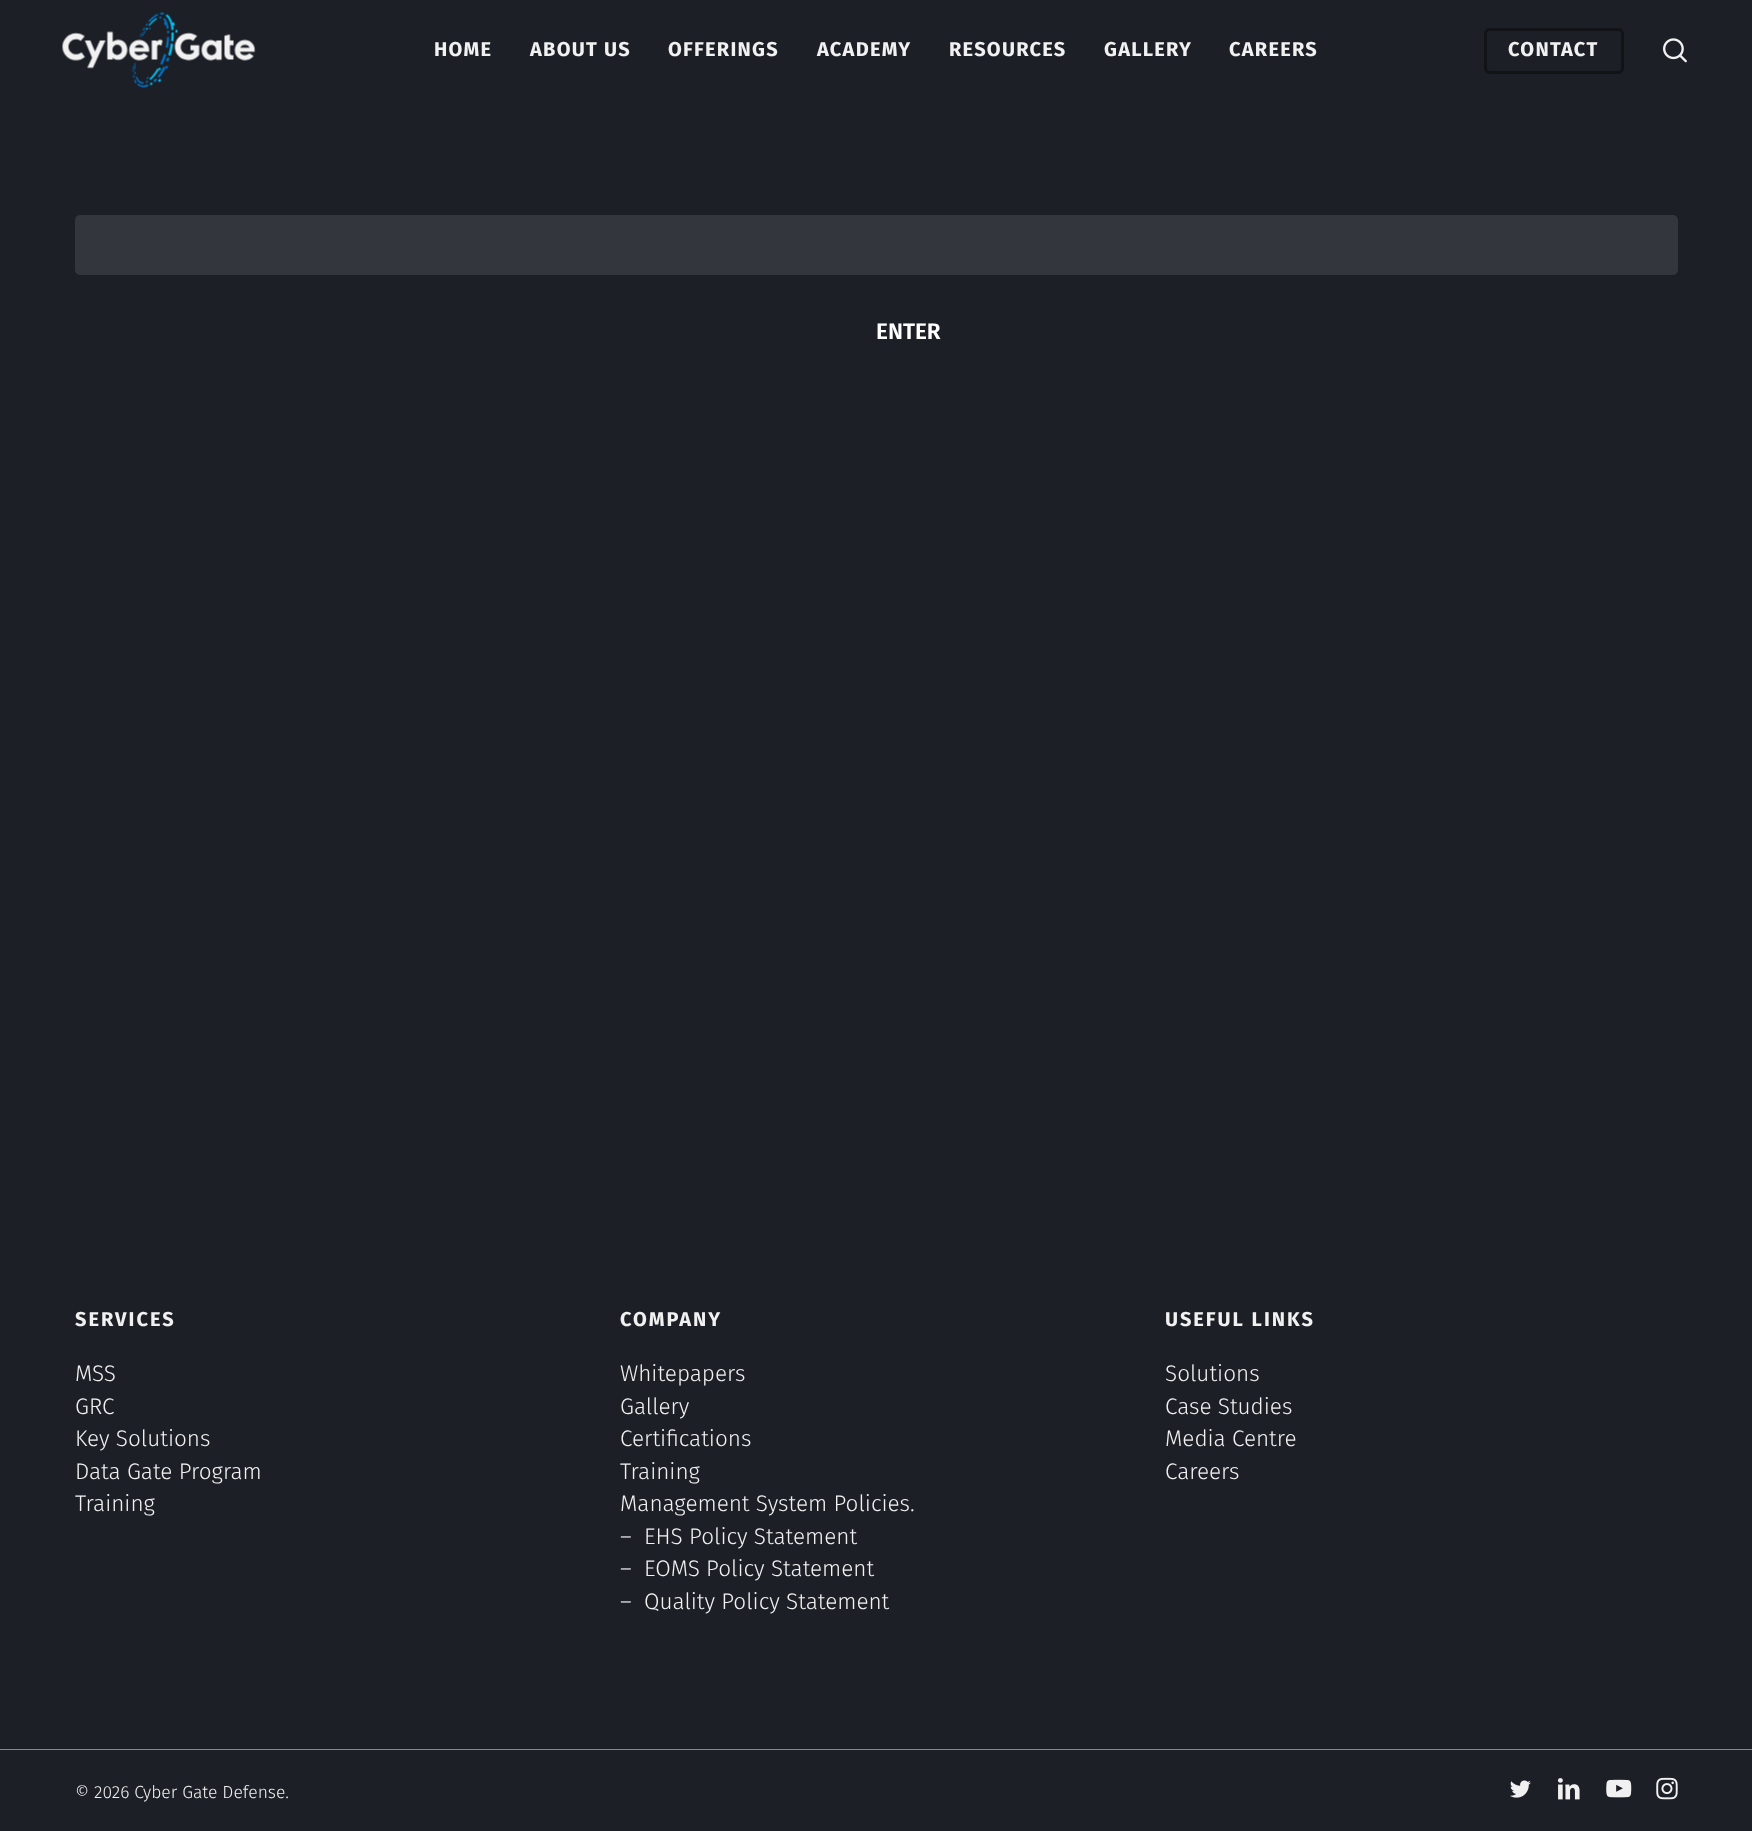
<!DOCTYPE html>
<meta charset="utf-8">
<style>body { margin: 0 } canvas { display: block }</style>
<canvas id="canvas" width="1752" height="1831"></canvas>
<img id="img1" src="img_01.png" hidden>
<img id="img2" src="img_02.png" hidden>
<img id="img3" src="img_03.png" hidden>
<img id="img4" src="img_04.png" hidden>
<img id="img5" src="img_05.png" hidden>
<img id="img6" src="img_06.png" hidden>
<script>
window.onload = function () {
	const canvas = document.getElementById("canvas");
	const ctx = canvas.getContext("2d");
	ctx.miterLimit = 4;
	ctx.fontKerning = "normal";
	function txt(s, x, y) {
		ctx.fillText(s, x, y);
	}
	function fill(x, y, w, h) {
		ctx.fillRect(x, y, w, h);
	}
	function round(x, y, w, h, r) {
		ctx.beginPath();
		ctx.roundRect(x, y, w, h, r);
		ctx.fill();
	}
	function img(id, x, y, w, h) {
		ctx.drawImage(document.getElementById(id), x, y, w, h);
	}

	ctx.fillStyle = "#1C1F26";
	fill(0, 0, 1752, 1831);
	img("img1", 62, 12, 194, 76);
	ctx.beginPath();
	ctx.roundRect(1485.5, 29.5, 137, 43, 4.5);
	ctx.strokeStyle = "#111317";
	ctx.lineWidth = 3;
	ctx.stroke();
	img("img2", 1663, 38, 24, 25);
	ctx.fillStyle = "#33363D";
	round(75, 215, 1603, 60, 5);
	ctx.fillStyle = "#898989";
	fill(0, 1749, 1752, 1);
	img("img3", 1510, 1780, 21, 18);
	img("img4", 1557, 1778, 23, 22);
	img("img5", 1606, 1779, 26, 19);
	img("img6", 1656, 1777, 22, 23);
	ctx.letterSpacing = "1.25px";
	ctx.font = "bold 20px Fira Sans";
	ctx.fillStyle = "#F1F1F1";
	txt("HOME", 434, 56);
	txt("ABOUT US", 530, 56);
	txt("OFFERINGS", 668, 56);
	txt("ACADEMY", 817, 56);
	txt("RESOURCES", 949, 56);
	txt("GALLERY", 1104, 56);
	txt("CAREERS", 1229, 56);
	txt("CONTACT", 1508, 56);
	ctx.letterSpacing = "0px";
	ctx.font = "600 22.5px Fira Sans";
	ctx.fillStyle = "#FFFFFF";
	txt("ENTER", 876, 339);
	ctx.letterSpacing = "2px";
	ctx.font = "bold 20px Fira Sans";
	ctx.fillStyle = "#F1F1F1";
	txt("SERVICES", 75, 1326);
	ctx.letterSpacing = "0px";
	ctx.font = "300 22.5px Fira Sans";
	txt("MSS", 75, 1381);
	txt("GRC", 75, 1414);
	txt("Key Solutions", 75, 1446);
	txt("Data Gate Program", 75, 1479);
	txt("Training", 75, 1511);
	ctx.letterSpacing = "2px";
	ctx.font = "bold 20px Fira Sans";
	txt("COMPANY", 620, 1326);
	ctx.letterSpacing = "0px";
	ctx.font = "300 22.5px Fira Sans";
	txt("Whitepapers", 620, 1381);
	txt("Gallery", 620, 1414);
	txt("Certifications", 620, 1446);
	txt("Training", 620, 1479);
	txt("Management System Policies.", 620, 1511);
	txt("–", 620, 1544);
	txt("EHS Policy Statement", 644, 1544);
	txt("–", 620, 1576);
	txt("EOMS Policy Statement", 644, 1576);
	txt("–", 620, 1609);
	txt("Quality Policy Statement", 644, 1609);
	ctx.letterSpacing = "2px";
	ctx.font = "bold 20px Fira Sans";
	txt("USEFUL LINKS", 1165, 1326);
	ctx.letterSpacing = "0px";
	ctx.font = "300 22.5px Fira Sans";
	txt("Solutions", 1165, 1381);
	txt("Case Studies", 1165, 1414);
	txt("Media Centre", 1165, 1446);
	txt("Careers", 1165, 1479);
	ctx.font = "300 17.5px Fira Sans";
	txt("© 2026 Cyber Gate Defense.", 75, 1798);
};
</script>
